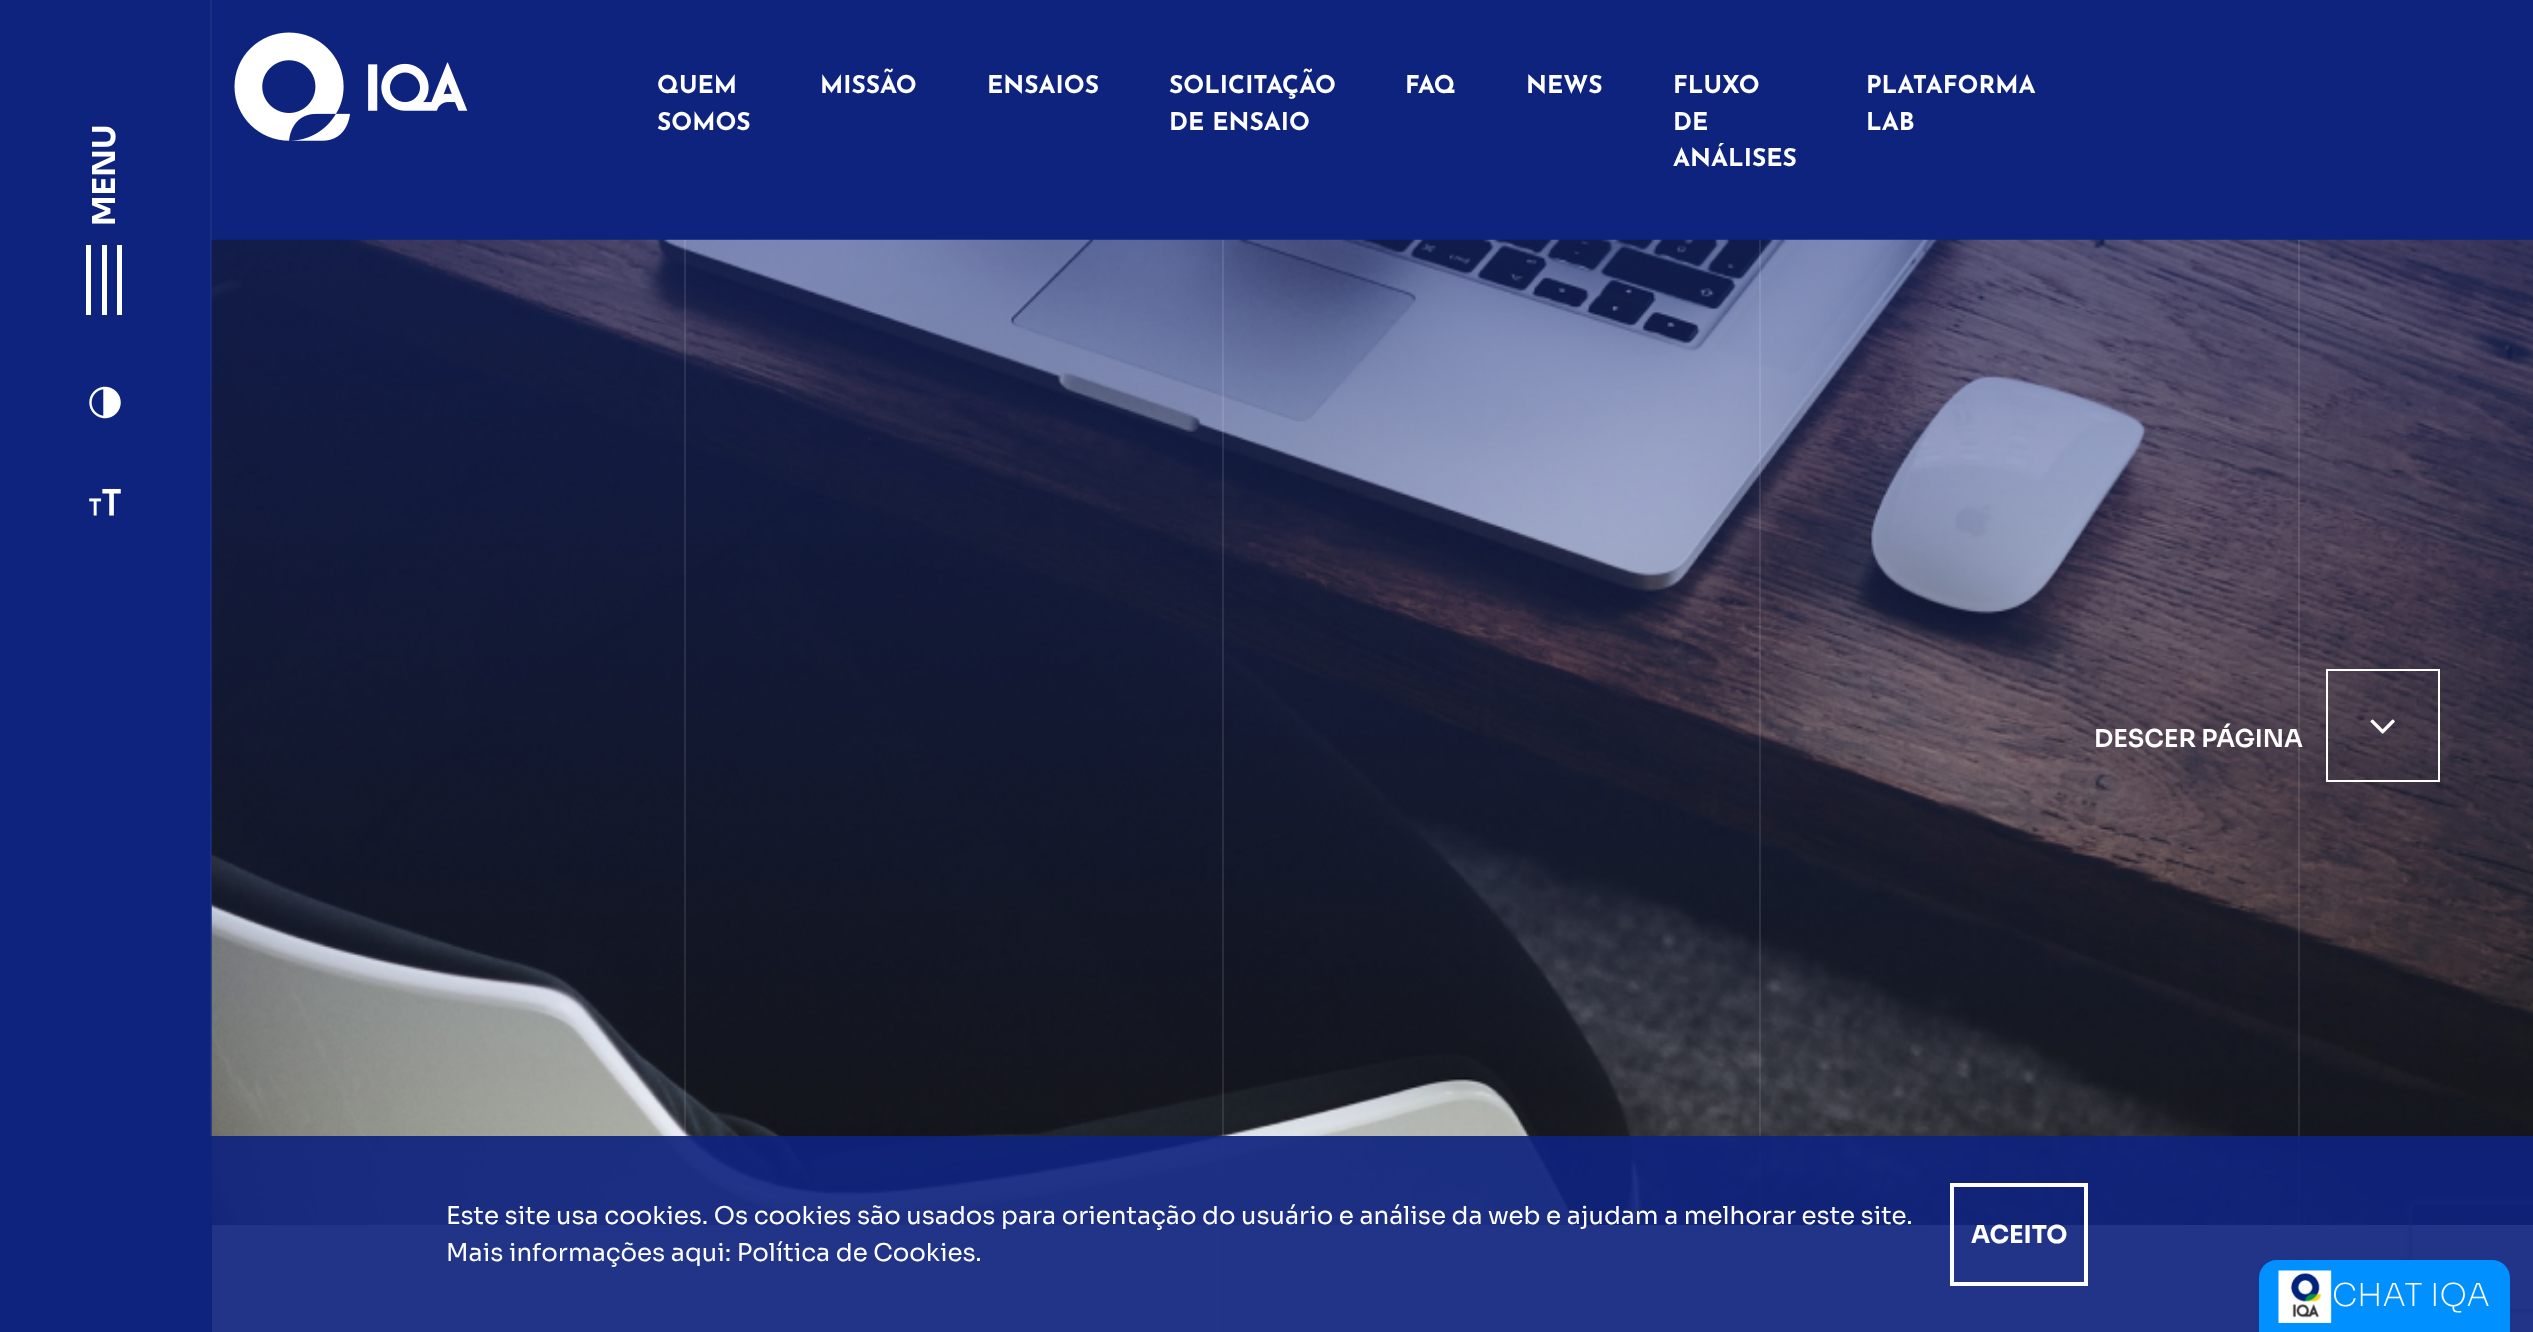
<!DOCTYPE html>
<meta charset="utf-8">
<style>body { margin: 0 } canvas { display: block }</style>
<canvas id="canvas" width="2533" height="1332"></canvas>
<img id="img1" src="img_01.png" hidden>
<img id="img2" src="img_02.png" hidden>
<img id="img3" src="img_03.png" hidden>
<img id="img4" src="img_04.png" hidden>
<img id="img5" src="img_05.png" hidden>
<img id="img6" src="img_06.png" hidden>
<script>
window.onload = function () {
	const canvas = document.getElementById("canvas");
	const ctx = canvas.getContext("2d");
	ctx.miterLimit = 4;
	ctx.fontKerning = "normal";
	function txt(s, x, y) {
		ctx.fillText(s, x, y);
	}
	function fill(x, y, w, h) {
		ctx.fillRect(x, y, w, h);
	}
	function img(id, x, y, w, h) {
		ctx.drawImage(document.getElementById(id), x, y, w, h);
	}

	ctx.fillStyle = "#FFFFFF";
	fill(0, 0, 2533, 1332);
	ctx.fillStyle = "#0E237E";
	fill(0, 0, 210, 1332);
	ctx.fillStyle = "#1A2E84";
	fill(210, 0, 2, 1332);
	ctx.fillStyle = "#FFFFFF";
	fill(86, 245, 5, 70);
	fill(102, 245, 5, 70);
	fill(117, 245, 5, 70);
	img("img1", 89, 386, 32, 33);
	img("img2", 89, 488, 32, 28);
	ctx.fillStyle = "#0E237E";
	fill(212, 0, 2321, 240);
	img("img3", 234, 32, 234, 109);
	img("img4", 211, 239, 2322, 986);
	ctx.fillStyle = "rgba(255, 255, 255, 0.1)";
	fill(684, 240, 2, 985);
	fill(1222, 240, 2, 985);
	fill(1759, 240, 2, 985);
	fill(2298, 240, 2, 985);
	ctx.strokeStyle = "#FFFFFF";
	ctx.lineWidth = 2;
	ctx.strokeRect(2327, 670, 112, 111);
	img("img5", 2370, 719, 25, 15);
	ctx.fillStyle = "#EBEBEB";
	fill(684, 1225, 2, 107);
	fill(1222, 1225, 2, 107);
	fill(1759, 1225, 2, 107);
	fill(2298, 1225, 2, 35);
	ctx.save();
	ctx.beginPath();
	ctx.moveTo(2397, 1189);
	ctx.lineTo(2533, 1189);
	ctx.lineTo(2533, 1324);
	ctx.lineTo(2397, 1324);
	ctx.closePath();
	ctx.moveTo(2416, 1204);
	ctx.lineTo(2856, 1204);
	ctx.bezierCurveTo(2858, 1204, 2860, 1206, 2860, 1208);
	ctx.lineTo(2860, 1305);
	ctx.bezierCurveTo(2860, 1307, 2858, 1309, 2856, 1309);
	ctx.lineTo(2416, 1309);
	ctx.bezierCurveTo(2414, 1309, 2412, 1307, 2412, 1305);
	ctx.lineTo(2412, 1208);
	ctx.bezierCurveTo(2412, 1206, 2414, 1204, 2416, 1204);
	ctx.closePath();
	ctx.clip("evenodd");
	ctx.fillStyle = "#808080";
	ctx.filter = "blur(4.5px)";
	ctx.beginPath();
	ctx.roundRect(2412, 1204, 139, 105, 4);
	ctx.fill();
	ctx.filter = "none";
	ctx.restore();
	ctx.fillStyle = "rgba(14, 35, 126, 0.92)";
	fill(210, 1136, 2323, 196);
	ctx.lineWidth = 4;
	ctx.strokeRect(1952, 1185, 134, 99);
	ctx.fillStyle = "#0090FF";
	ctx.beginPath();
	ctx.moveTo(2277, 1260);
	ctx.lineTo(2492, 1260);
	ctx.bezierCurveTo(2502, 1260, 2510, 1268, 2510, 1278);
	ctx.lineTo(2510, 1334);
	ctx.lineTo(2259, 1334);
	ctx.lineTo(2259, 1278);
	ctx.bezierCurveTo(2259, 1268, 2267, 1260, 2277, 1260);
	ctx.closePath();
	ctx.fill();
	img("img6", 2278, 1270, 54, 53);
	ctx.font = "bold 31.5px Sora";
	ctx.fillStyle = "#FFFFFF";
	ctx.save();
	ctx.translate(115, 226);
	ctx.rotate(-90 * Math.PI / 180);
	ctx.fillText("MENU", 0, 0);
	ctx.restore();
	ctx.font = "bold 24.5px Josefin Sans";
	txt("QUEM", 657, 93);
	txt("SOMOS", 657, 130);
	txt("MISSÃO", 820, 93);
	txt("ENSAIOS", 987, 93);
	txt("SOLICITAÇÃO", 1169, 93);
	txt("DE ENSAIO", 1169, 130);
	txt("FAQ", 1405, 93);
	txt("NEWS", 1526, 93);
	txt("FLUXO", 1673, 93);
	txt("DE", 1673, 130);
	txt("ANÁLISES", 1673, 166);
	txt("PLATAFORMA", 1866, 93);
	txt("LAB", 1866, 130);
	ctx.font = "600 24.5px Sora";
	txt("DESCER PÁGINA", 2094, 747);
	ctx.font = "24.5px Sora";
	txt("Este site usa cookies. Os cookies são usados para orientação do usuário e análise da web e ajudam a melhorar este site.", 446, 1224);
	txt("Mais informações aqui: Política de Cookies.", 446, 1261);
	ctx.font = "bold 24.5px Sora";
	txt("ACEITO", 1971, 1243);
	ctx.font = "200 31.5px Sora";
	txt("CHAT IQA", 2332, 1306);
};
</script>
